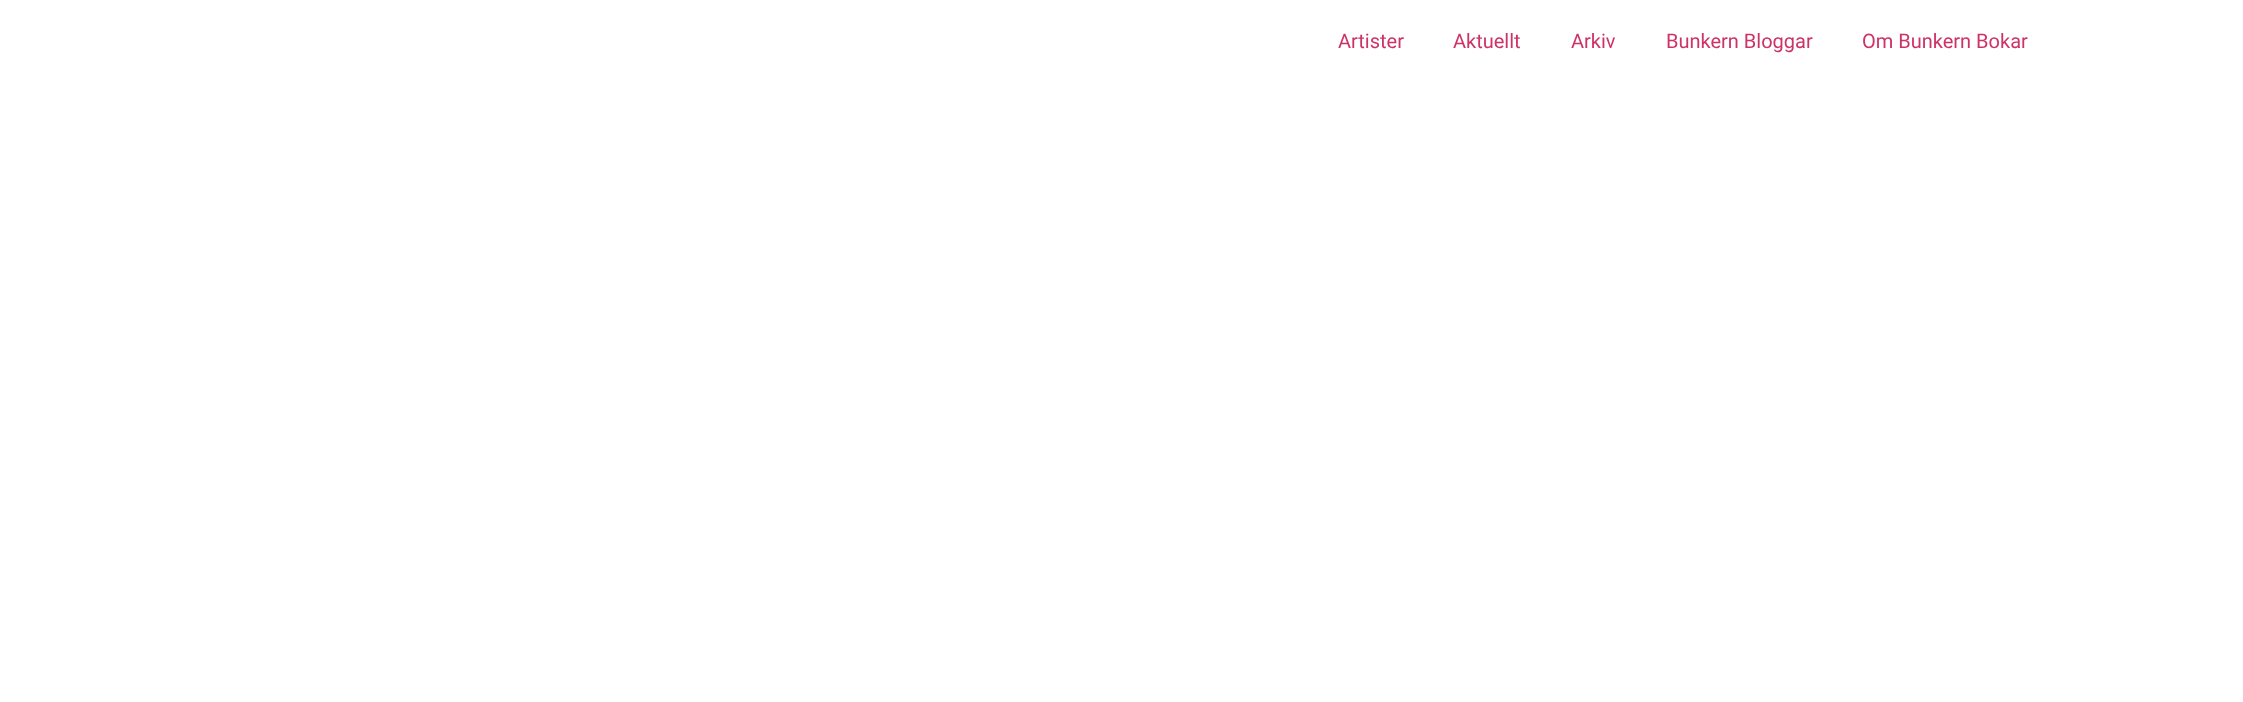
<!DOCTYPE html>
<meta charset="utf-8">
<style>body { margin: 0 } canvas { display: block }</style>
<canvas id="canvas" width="2243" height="702"></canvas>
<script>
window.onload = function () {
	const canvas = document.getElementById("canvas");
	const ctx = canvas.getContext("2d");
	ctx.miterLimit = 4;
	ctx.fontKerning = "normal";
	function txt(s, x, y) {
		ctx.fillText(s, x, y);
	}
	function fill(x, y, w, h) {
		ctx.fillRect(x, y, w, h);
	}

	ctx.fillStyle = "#FFFFFF";
	fill(0, 0, 2243, 702);
	ctx.font = "20px Roboto";
	ctx.fillStyle = "#CC3366";
	txt("Artister", 1338, 48);
	txt("Aktuellt", 1453, 48);
	txt("Arkiv", 1571, 48);
	txt("Bunkern Bloggar", 1666, 48);
	txt("Om Bunkern Bokar", 1862, 48);
};
</script>
